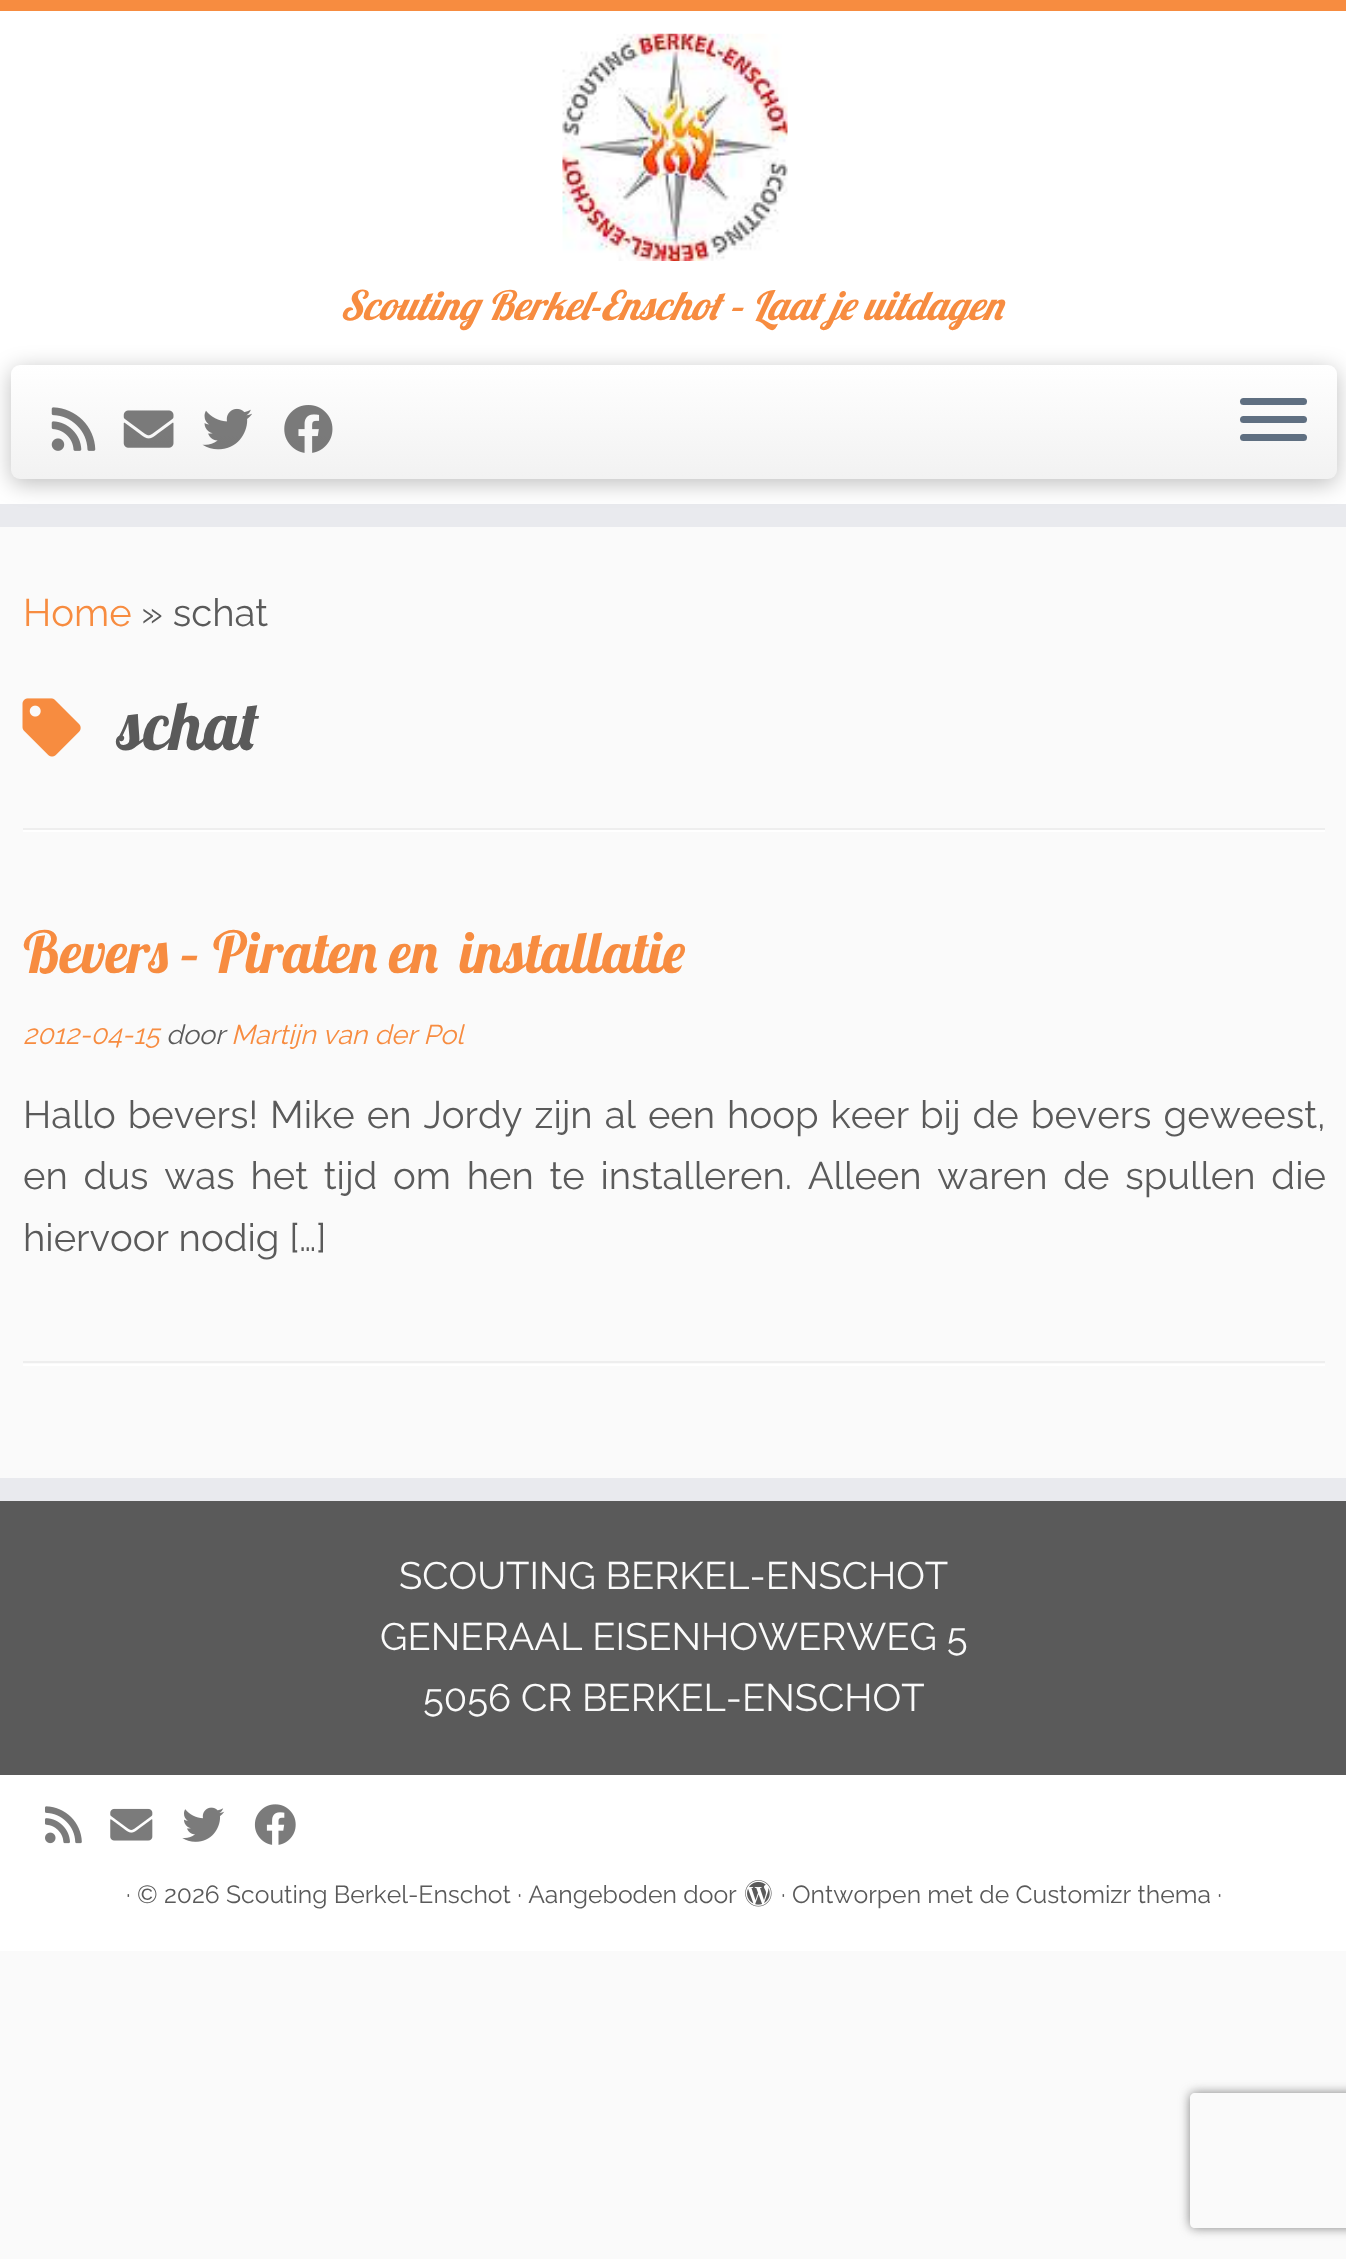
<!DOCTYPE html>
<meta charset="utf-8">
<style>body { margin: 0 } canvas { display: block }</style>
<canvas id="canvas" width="1346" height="2259"></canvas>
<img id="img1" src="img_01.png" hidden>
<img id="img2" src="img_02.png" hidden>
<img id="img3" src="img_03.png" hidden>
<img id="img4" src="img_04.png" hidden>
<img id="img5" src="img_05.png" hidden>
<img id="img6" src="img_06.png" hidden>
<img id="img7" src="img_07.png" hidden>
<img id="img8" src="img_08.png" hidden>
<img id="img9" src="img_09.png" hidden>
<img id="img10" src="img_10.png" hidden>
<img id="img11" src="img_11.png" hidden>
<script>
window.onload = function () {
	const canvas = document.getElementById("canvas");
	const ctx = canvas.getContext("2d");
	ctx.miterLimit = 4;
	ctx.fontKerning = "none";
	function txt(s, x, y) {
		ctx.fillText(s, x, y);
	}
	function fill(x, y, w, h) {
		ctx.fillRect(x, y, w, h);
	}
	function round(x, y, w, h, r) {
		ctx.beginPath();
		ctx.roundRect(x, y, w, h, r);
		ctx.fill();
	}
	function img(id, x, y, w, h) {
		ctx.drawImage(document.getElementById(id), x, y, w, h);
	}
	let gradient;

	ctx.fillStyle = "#FAFAFA";
	fill(0, 0, 1346, 2259);
	ctx.fillStyle = "#FFFFFF";
	fill(0, 11, 1346, 493);
	ctx.fillStyle = "#F78C40";
	fill(0, 0, 1346, 11);
	ctx.fillStyle = "#E9EAEE";
	fill(0, 504, 1346, 23);
	img("img1", 562, 33, 226, 228);
	ctx.fillStyle = "rgba(0, 0, 0, 0.25)";
	ctx.filter = "blur(11px)";
	ctx.beginPath();
	ctx.roundRect(11, 369, 1326, 115, 9);
	ctx.fill();
	ctx.filter = "none";
	gradient = ctx.createLinearGradient(674, 364, 674, 479);
	gradient.addColorStop(0, "#FFFFFF");
	gradient.addColorStop(1, "#F2F2F2");
	ctx.fillStyle = gradient;
	round(11, 365, 1326, 114, 9);
	img("img2", 51, 407, 45, 44);
	img("img3", 123, 410, 51, 38);
	img("img4", 202, 408, 50, 42);
	img("img5", 284, 405, 49, 48);
	ctx.fillStyle = "#5F6F81";
	round(1240, 398, 67, 7, 3.5);
	round(1240, 416, 67, 7, 3.5);
	round(1240, 434, 67, 7, 3.5);
	img("img6", 22, 698, 59, 59);
	ctx.fillStyle = "#EEEEEE";
	fill(23, 828, 1302, 2);
	ctx.fillStyle = "#FFFFFF";
	fill(23, 830, 1302, 2);
	ctx.fillStyle = "#EEEEEE";
	fill(23, 1361, 1302, 2);
	ctx.fillStyle = "#FFFFFF";
	fill(23, 1364, 1302, 2);
	ctx.fillStyle = "#5A5A5A";
	fill(0, 1501, 1346, 274);
	ctx.fillStyle = "#E9EAEE";
	fill(0, 1478, 1346, 23);
	ctx.fillStyle = "#FFFFFF";
	fill(0, 1775, 1346, 176);
	img("img7", 45, 1806, 37, 38);
	img("img8", 110, 1808, 43, 33);
	img("img9", 182, 1807, 43, 35);
	img("img10", 254, 1804, 42, 41);
	img("img11", 745, 1880, 27, 27);
	ctx.save();
	ctx.beginPath();
	ctx.moveTo(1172, 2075);
	ctx.lineTo(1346, 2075);
	ctx.lineTo(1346, 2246);
	ctx.lineTo(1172, 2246);
	ctx.closePath();
	ctx.moveTo(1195, 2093);
	ctx.lineTo(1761, 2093);
	ctx.bezierCurveTo(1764, 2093, 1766, 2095, 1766, 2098);
	ctx.lineTo(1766, 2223);
	ctx.bezierCurveTo(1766, 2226, 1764, 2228, 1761, 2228);
	ctx.lineTo(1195, 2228);
	ctx.bezierCurveTo(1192, 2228, 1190, 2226, 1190, 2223);
	ctx.lineTo(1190, 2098);
	ctx.bezierCurveTo(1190, 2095, 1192, 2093, 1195, 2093);
	ctx.closePath();
	ctx.clip("evenodd");
	ctx.fillStyle = "#808080";
	ctx.filter = "blur(5.5px)";
	ctx.beginPath();
	ctx.roundRect(1190, 2093, 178, 135, 5);
	ctx.fill();
	ctx.filter = "none";
	ctx.restore();
	ctx.font = "italic 40.5px Lobster";
	ctx.fillStyle = "#F78C40";
	txt("Scouting Berkel-Enschot – Laat je uitdagen", 340, 320);
	ctx.font = "100 38.25px Raleway";
	txt("Home", 23, 626);
	ctx.fillStyle = "#5A5A5A";
	txt("» schat", 141, 626);
	ctx.font = "68px Lobster";
	txt("schat", 118, 750);
	ctx.font = "57.6px Lobster";
	ctx.fillStyle = "#F78C40";
	txt("Bevers – Piraten en", 23, 973);
	txt("installatie", 460, 973);
	ctx.font = "italic 100 27px Raleway";
	txt("2012-04-15", 23, 1044);
	ctx.fillStyle = "#5A5A5A";
	txt("door", 166, 1044);
	ctx.fillStyle = "#F78C40";
	txt("Martijn van der Pol", 231, 1044);
	ctx.wordSpacing = "2.25px";
	ctx.font = "100 38.25px Raleway";
	ctx.fillStyle = "#5A5A5A";
	txt("Hallo bevers! Mike en Jordy zijn al een hoop keer", 23, 1128);
	txt("bij de bevers geweest,", 920, 1128);
	ctx.wordSpacing = "6px";
	txt("en dus was het tijd om hen te installeren. Alleen waren de spullen die", 23, 1189);
	ctx.wordSpacing = "0px";
	txt("hiervoor nodig […]", 23, 1251);
	ctx.fillStyle = "#FAFAFA";
	txt("SCOUTING BERKEL-ENSCHOT", 399, 1589);
	txt("GENERAAL EISENHOWERWEG 5", 380, 1650);
	txt("5056 CR BERKEL-ENSCHOT", 423, 1711);
	ctx.font = "100 24.75px Raleway";
	ctx.fillStyle = "#5A5A5A";
	txt("· © 2026 Scouting Berkel-Enschot · Aangeboden door", 126, 1903);
	txt("· Ontworpen met de Customizr thema ·", 781, 1903);
};
</script>
